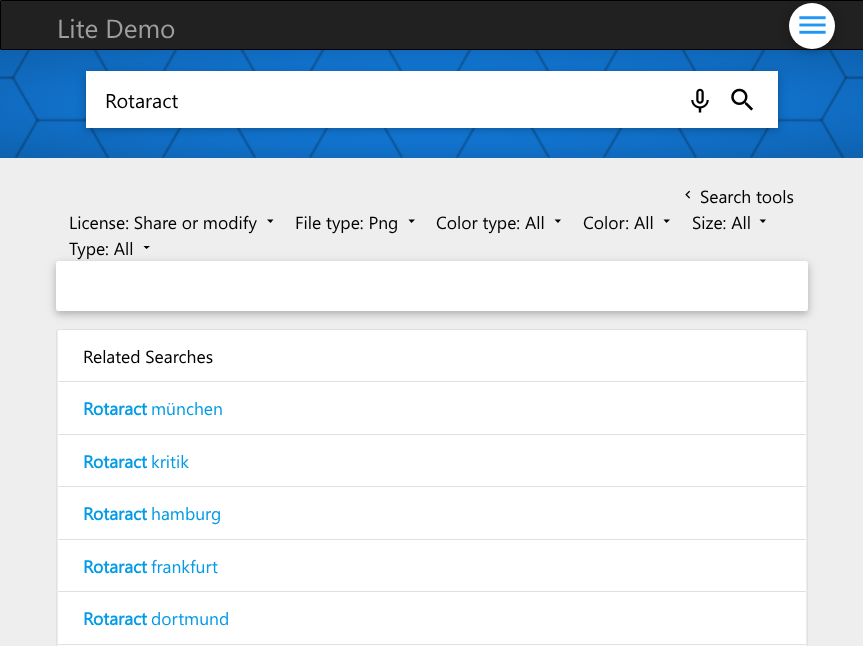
<!DOCTYPE html>
<meta charset="utf-8">
<style>body { margin: 0 } canvas { display: block }</style>
<canvas id="canvas" width="863" height="646"></canvas>
<img id="img1" src="img_02.png" hidden>
<img id="img2" src="img_01.png" hidden>
<img id="img3" src="img_03.png" hidden>
<img id="img4" src="img_04.png" hidden>
<img id="img5" src="img_05.png" hidden>
<script>
window.onload = function () {
	const canvas = document.getElementById("canvas");
	const ctx = canvas.getContext("2d");
	ctx.miterLimit = 4;
	ctx.fontKerning = "normal";
	function txt(s, x, y) {
		ctx.fillText(s, x, y);
	}
	function fill(x, y, w, h) {
		ctx.fillRect(x, y, w, h);
	}
	function round(x, y, w, h, r) {
		ctx.beginPath();
		ctx.roundRect(x, y, w, h, r);
		ctx.fill();
	}
	function img(id, x, y, w, h) {
		ctx.drawImage(document.getElementById(id), x, y, w, h);
	}
	let gradient;

	ctx.fillStyle = "#EEEEEE";
	fill(0, 0, 863, 646);
	ctx.fillStyle = "#212121";
	ctx.beginPath();
	ctx.rect(0.5, 0.5, 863, 49);
	ctx.fill();
	ctx.strokeStyle = "#000000";
	ctx.stroke();
	gradient = ctx.createRadialGradient(432, 836.11, 0, 432, 836.11, 611);
	gradient.addColorStop(0, "#1585ED");
	gradient.addColorStop(1, "#0E61AE");
	ctx.fillStyle = gradient;
	ctx.beginPath();
	ctx.rect(0, 50, 863, 108);
	ctx.save();
	ctx.clip();
	ctx.scale(1, 76 / 611);
	ctx.fillRect(0, 0, 863, 5194);
	ctx.restore();
	img("img1", 0, 50, 863, 108);
	ctx.fillStyle = "rgba(0, 0, 0, 0.12)";
	ctx.filter = "blur(6px)";
	ctx.beginPath();
	ctx.roundRect(789, 5, 46, 46, 23);
	ctx.fill();
	ctx.filter = "none";
	ctx.fillStyle = "rgba(0, 0, 0, 0.16)";
	ctx.filter = "blur(3px)";
	ctx.beginPath();
	ctx.roundRect(789, 5, 46, 46, 23);
	ctx.fill();
	ctx.filter = "none";
	ctx.fillStyle = "#FFFFFF";
	ctx.beginPath();
	ctx.arc(812, 26, 23, 0, Math.PI * 2);
	ctx.fill();
	img("img2", 799, 16, 27, 18);
	ctx.fillStyle = "rgba(0, 0, 0, 0.12)";
	ctx.filter = "blur(6px)";
	ctx.beginPath();
	ctx.roundRect(86, 74, 692, 56, 2.5);
	ctx.fill();
	ctx.filter = "none";
	ctx.fillStyle = "rgba(0, 0, 0, 0.16)";
	ctx.filter = "blur(3px)";
	ctx.beginPath();
	ctx.roundRect(86, 74, 692, 56, 2.5);
	ctx.fill();
	ctx.filter = "none";
	ctx.fillStyle = "#FFFFFF";
	fill(86, 71, 692, 57);
	img("img3", 691, 88, 18, 25);
	img("img4", 731, 88, 22, 23);
	img("img5", 685, 190, 5, 9);
	ctx.fillStyle = "#000000";
	ctx.beginPath();
	ctx.moveTo(267, 219.5);
	ctx.lineTo(273.5, 219.5);
	ctx.lineTo(270.5, 223);
	ctx.closePath();
	ctx.fill();
	ctx.beginPath();
	ctx.moveTo(408.5, 219.5);
	ctx.lineTo(415, 219.5);
	ctx.lineTo(411.5, 223);
	ctx.closePath();
	ctx.fill();
	ctx.beginPath();
	ctx.moveTo(554.5, 219.5);
	ctx.lineTo(561, 219.5);
	ctx.lineTo(558, 223);
	ctx.closePath();
	ctx.fill();
	ctx.beginPath();
	ctx.moveTo(663.5, 219.5);
	ctx.lineTo(670, 219.5);
	ctx.lineTo(666.5, 223);
	ctx.closePath();
	ctx.fill();
	ctx.beginPath();
	ctx.moveTo(759.5, 219.5);
	ctx.lineTo(766, 219.5);
	ctx.lineTo(763, 223);
	ctx.closePath();
	ctx.fill();
	ctx.beginPath();
	ctx.moveTo(143.5, 246);
	ctx.lineTo(150, 246);
	ctx.lineTo(146.5, 249);
	ctx.closePath();
	ctx.fill();
	ctx.fillStyle = "rgba(0, 0, 0, 0.12)";
	ctx.filter = "blur(6px)";
	ctx.beginPath();
	ctx.roundRect(56, 264, 752, 50, 2.5);
	ctx.fill();
	ctx.filter = "none";
	ctx.fillStyle = "rgba(0, 0, 0, 0.16)";
	ctx.filter = "blur(3px)";
	ctx.beginPath();
	ctx.roundRect(56, 264, 752, 50, 2.5);
	ctx.fill();
	ctx.filter = "none";
	ctx.fillStyle = "#FFFFFF";
	round(56, 261, 752, 50, 2.5);
	ctx.beginPath();
	ctx.roundRect(56.5, 329.5, 751, 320, 2);
	ctx.strokeStyle = "#E0E0E0";
	ctx.stroke();
	ctx.beginPath();
	ctx.roundRect(58, 330, 748, 53, [1, 1, 0, 0]);
	ctx.fill();
	ctx.fillStyle = "#E0E0E0";
	fill(58, 381, 748, 1);
	ctx.fillStyle = "#FFFFFF";
	fill(58, 383, 748, 51);
	ctx.fillStyle = "#E0E0E0";
	fill(58, 434, 748, 1);
	ctx.fillStyle = "#FFFFFF";
	fill(58, 435, 748, 104);
	ctx.fillStyle = "#E0E0E0";
	fill(58, 486, 748, 1);
	fill(58, 539, 748, 1);
	ctx.fillStyle = "#FFFFFF";
	fill(58, 540, 748, 104);
	ctx.fillStyle = "#E0E0E0";
	fill(58, 591, 748, 1);
	fill(58, 644, 748, 1);
	ctx.fillStyle = "#FFFFFF";
	fill(58, 645, 748, 1);
	ctx.font = "26.25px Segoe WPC";
	ctx.fillStyle = "#9E9E9E";
	txt("Lite Demo", 57, 38);
	ctx.font = "20px Segoe WPC";
	ctx.fillStyle = "#000000";
	txt("Rotaract", 105, 108);
	ctx.font = "17.5px Segoe WPC";
	txt("Search tools", 700, 203);
	txt("License: Share or modify", 69, 229);
	txt("File type: Png", 295, 229);
	txt("Color type: All", 436, 229);
	txt("Color: All", 583, 229);
	txt("Size: All", 692, 229);
	txt("Type: All", 69, 255);
	txt("Related Searches", 83, 363);
	ctx.font = "bold 17.5px Segoe WPC";
	ctx.fillStyle = "#039BE5";
	txt("Rotaract", 83, 415);
	ctx.font = "17.5px Segoe WPC";
	txt("münchen", 151, 415);
	ctx.font = "bold 17.5px Segoe WPC";
	txt("Rotaract", 83, 468);
	ctx.font = "17.5px Segoe WPC";
	txt("kritik", 151, 468);
	ctx.font = "bold 17.5px Segoe WPC";
	txt("Rotaract", 83, 520);
	ctx.font = "17.5px Segoe WPC";
	txt("hamburg", 151, 520);
	ctx.font = "bold 17.5px Segoe WPC";
	txt("Rotaract", 83, 573);
	ctx.font = "17.5px Segoe WPC";
	txt("frankfurt", 151, 573);
	ctx.font = "bold 17.5px Segoe WPC";
	txt("Rotaract", 83, 625);
	ctx.font = "17.5px Segoe WPC";
	txt("dortmund", 151, 625);
};
</script>
